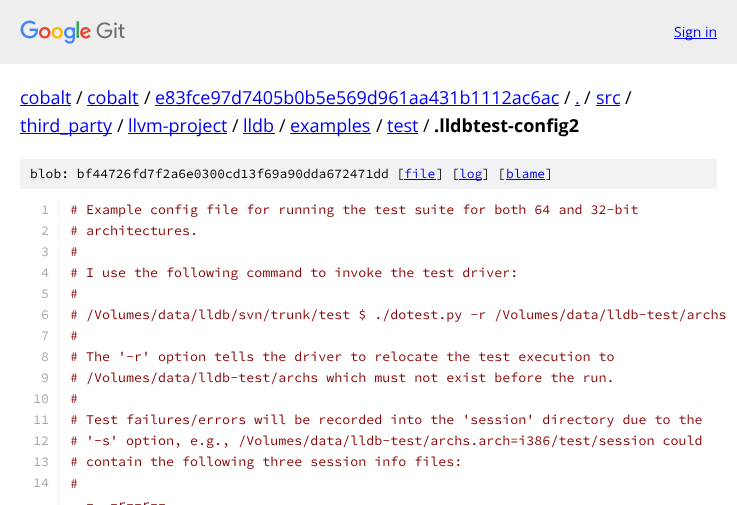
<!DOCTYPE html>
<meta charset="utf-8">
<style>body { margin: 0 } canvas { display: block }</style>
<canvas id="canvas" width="737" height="505"></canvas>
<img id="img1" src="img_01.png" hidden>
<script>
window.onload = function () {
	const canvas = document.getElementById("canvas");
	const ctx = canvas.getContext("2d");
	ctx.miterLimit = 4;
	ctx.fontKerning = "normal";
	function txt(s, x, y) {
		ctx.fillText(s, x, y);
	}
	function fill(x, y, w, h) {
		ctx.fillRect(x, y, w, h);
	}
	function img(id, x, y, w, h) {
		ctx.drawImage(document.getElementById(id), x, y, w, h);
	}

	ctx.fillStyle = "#FFFFFF";
	fill(0, 0, 737, 505);
	ctx.fillStyle = "#EEEEEE";
	fill(0, 0, 737, 64);
	img("img1", 20, 20, 105, 24);
	ctx.fillStyle = "#0000EE";
	fill(674, 38, 43, 1);
	fill(20, 105, 51, 1);
	fill(87, 105, 52, 1);
	fill(155, 105, 404, 1);
	fill(575, 105, 5, 1);
	fill(596, 105, 24, 1);
	fill(20, 133, 92, 1);
	fill(128, 133, 99, 1);
	fill(243, 133, 32, 1);
	fill(290, 133, 81, 1);
	fill(387, 133, 31, 1);
	ctx.fillStyle = "#F1F2F3";
	fill(20, 159, 697, 30);
	ctx.fillStyle = "#0000EE";
	fill(404, 179, 32, 1);
	fill(459, 179, 23, 1);
	fill(506, 179, 39, 1);
	ctx.fillStyle = "#F1F2F3";
	fill(59, 200, 1, 20);
	fill(59, 221, 1, 20);
	fill(59, 242, 1, 263);
	ctx.font = "14px Open Sans";
	ctx.fillStyle = "#0000EE";
	txt("Sign in", 674, 37);
	ctx.font = "18px Open Sans";
	txt("cobalt", 20, 104);
	ctx.fillStyle = "#000000";
	txt("/", 76, 104);
	ctx.fillStyle = "#0000EE";
	txt("cobalt", 87, 104);
	ctx.fillStyle = "#000000";
	txt("/", 144, 104);
	ctx.fillStyle = "#0000EE";
	txt("e83fce97d7405b0b5e569d961aa431b1112ac6ac", 155, 104);
	ctx.fillStyle = "#000000";
	txt("/", 564, 104);
	ctx.fillStyle = "#0000EE";
	txt(".", 575, 104);
	ctx.fillStyle = "#000000";
	txt("/", 584, 104);
	ctx.fillStyle = "#0000EE";
	txt("src", 596, 104);
	ctx.fillStyle = "#000000";
	txt("/", 625, 104);
	ctx.fillStyle = "#0000EE";
	txt("third_party", 20, 132);
	ctx.fillStyle = "#000000";
	txt("/", 117, 132);
	ctx.fillStyle = "#0000EE";
	txt("llvm-project", 128, 132);
	ctx.fillStyle = "#000000";
	txt("/", 232, 132);
	ctx.fillStyle = "#0000EE";
	txt("lldb", 243, 132);
	ctx.fillStyle = "#000000";
	txt("/", 279, 132);
	ctx.fillStyle = "#0000EE";
	txt("examples", 290, 132);
	ctx.fillStyle = "#000000";
	txt("/", 376, 132);
	ctx.fillStyle = "#0000EE";
	txt("test", 387, 132);
	ctx.fillStyle = "#000000";
	txt("/", 423, 132);
	ctx.font = "bold 18px Open Sans";
	txt(".lldbtest-config2", 434, 132);
	ctx.font = "200 13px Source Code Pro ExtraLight";
	txt("blob: bf44726fd7f2a6e0300cd13f69a90dda672471dd [", 30, 178);
	ctx.fillStyle = "#0000EE";
	txt("file", 404, 178);
	ctx.fillStyle = "#000000";
	txt("] [", 436, 178);
	ctx.fillStyle = "#0000EE";
	txt("log", 459, 178);
	ctx.fillStyle = "#000000";
	txt("] [", 482, 178);
	ctx.fillStyle = "#0000EE";
	txt("blame", 506, 178);
	ctx.fillStyle = "#000000";
	txt("]", 545, 178);
	ctx.font = "200 13.35px Source Code Pro ExtraLight";
	ctx.fillStyle = "#AAAAAA";
	txt("1", 41, 214);
	ctx.fillStyle = "#880000";
	txt("# Example config file for running the test suite for both 64 and 32-bit", 70, 214);
	ctx.fillStyle = "#AAAAAA";
	txt("2", 41, 235);
	ctx.fillStyle = "#880000";
	txt("# architectures.", 70, 235);
	ctx.fillStyle = "#AAAAAA";
	txt("3", 41, 256);
	ctx.fillStyle = "#880000";
	txt("#", 70, 256);
	ctx.fillStyle = "#AAAAAA";
	txt("4", 41, 277);
	ctx.fillStyle = "#880000";
	txt("# I use the following command to invoke the test driver:", 70, 277);
	ctx.fillStyle = "#AAAAAA";
	txt("5", 41, 298);
	ctx.fillStyle = "#880000";
	txt("#", 70, 298);
	ctx.fillStyle = "#AAAAAA";
	txt("6", 41, 319);
	ctx.fillStyle = "#880000";
	txt("# /Volumes/data/lldb/svn/trunk/test $ ./dotest.py -r /Volumes/data/lldb-test/archs", 70, 319);
	ctx.fillStyle = "#AAAAAA";
	txt("7", 41, 340);
	ctx.fillStyle = "#880000";
	txt("#", 70, 340);
	ctx.fillStyle = "#AAAAAA";
	txt("8", 41, 361);
	ctx.fillStyle = "#880000";
	txt("# The '-r' option tells the driver to relocate the test execution to", 70, 361);
	ctx.fillStyle = "#AAAAAA";
	txt("9", 41, 382);
	ctx.fillStyle = "#880000";
	txt("# /Volumes/data/lldb-test/archs which must not exist before the run.", 70, 382);
	ctx.fillStyle = "#AAAAAA";
	txt("10", 33, 403);
	ctx.fillStyle = "#880000";
	txt("#", 70, 403);
	ctx.fillStyle = "#AAAAAA";
	txt("11", 33, 424);
	ctx.fillStyle = "#880000";
	txt("# Test failures/errors will be recorded into the 'session' directory due to the", 70, 424);
	ctx.fillStyle = "#AAAAAA";
	txt("12", 33, 445);
	ctx.fillStyle = "#880000";
	txt("# '-s' option, e.g., /Volumes/data/lldb-test/archs.arch=i386/test/session could", 70, 445);
	ctx.fillStyle = "#AAAAAA";
	txt("13", 33, 466);
	ctx.fillStyle = "#880000";
	txt("# contain the following three session info files:", 70, 466);
	ctx.fillStyle = "#AAAAAA";
	txt("14", 33, 487);
	ctx.fillStyle = "#880000";
	txt("#", 70, 488);
	txt("-", 86, 509);
	txt("-r--r--", 110, 509);
};
</script>
